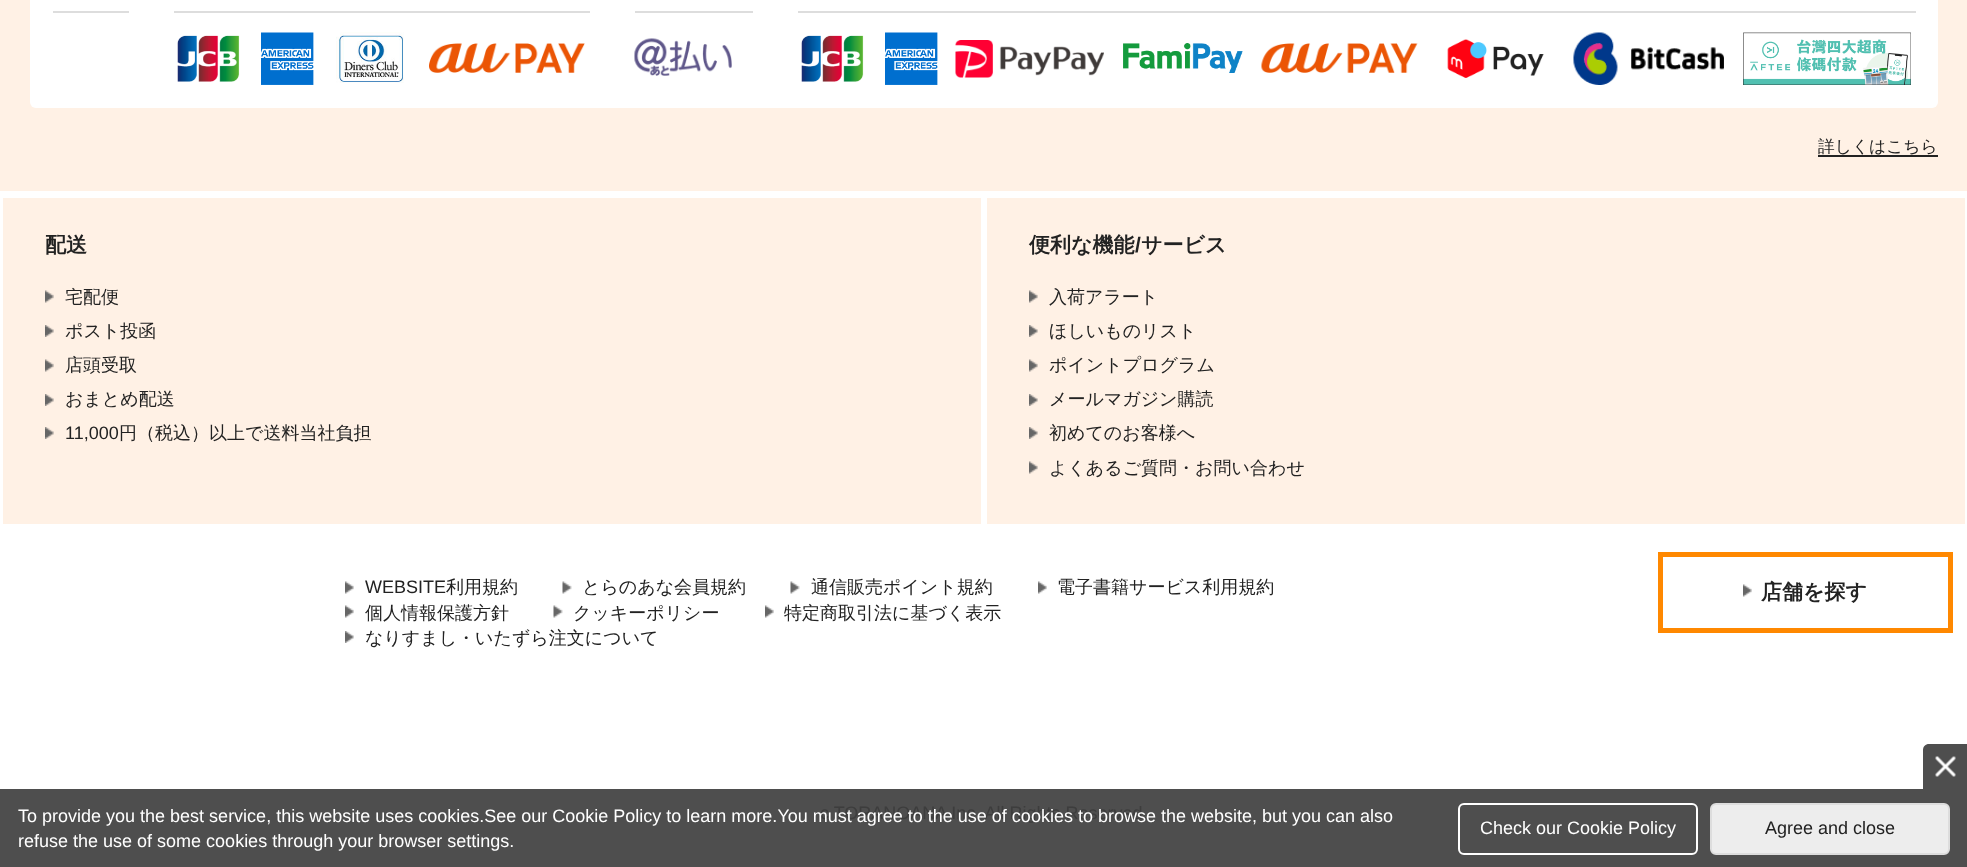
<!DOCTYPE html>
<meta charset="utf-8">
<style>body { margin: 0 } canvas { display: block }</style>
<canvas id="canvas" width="1967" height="867"></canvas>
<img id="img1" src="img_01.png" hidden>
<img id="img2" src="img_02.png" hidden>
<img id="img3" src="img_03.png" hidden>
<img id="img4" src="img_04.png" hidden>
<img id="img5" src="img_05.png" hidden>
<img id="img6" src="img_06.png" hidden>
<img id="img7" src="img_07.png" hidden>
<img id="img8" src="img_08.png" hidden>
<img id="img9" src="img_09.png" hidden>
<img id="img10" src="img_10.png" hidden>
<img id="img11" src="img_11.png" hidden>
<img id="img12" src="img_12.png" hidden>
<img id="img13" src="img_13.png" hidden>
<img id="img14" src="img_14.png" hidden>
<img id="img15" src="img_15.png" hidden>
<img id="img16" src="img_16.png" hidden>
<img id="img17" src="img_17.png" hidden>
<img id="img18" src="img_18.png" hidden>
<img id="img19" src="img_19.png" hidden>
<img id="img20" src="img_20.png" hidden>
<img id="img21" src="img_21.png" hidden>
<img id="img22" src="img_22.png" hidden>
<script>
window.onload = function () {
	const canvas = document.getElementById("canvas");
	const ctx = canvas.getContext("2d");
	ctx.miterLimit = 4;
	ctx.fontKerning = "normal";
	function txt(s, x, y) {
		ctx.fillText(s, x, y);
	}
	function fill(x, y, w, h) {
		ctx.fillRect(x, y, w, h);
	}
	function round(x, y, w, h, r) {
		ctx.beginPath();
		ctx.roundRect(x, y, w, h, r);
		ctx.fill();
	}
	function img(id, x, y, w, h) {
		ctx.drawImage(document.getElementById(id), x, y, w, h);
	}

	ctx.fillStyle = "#FFFFFF";
	fill(0, 0, 1967, 867);
	ctx.fillStyle = "#4E4E4E";
	fill(0, 789, 1967, 78);
	ctx.fillStyle = "#FFF1E5";
	fill(0, 0, 1967, 191);
	ctx.fillStyle = "#FFFFFF";
	round(30, -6, 1908, 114, 6);
	ctx.fillStyle = "#DDDDDD";
	fill(53, 11, 76, 2);
	fill(174, 11, 416, 2);
	img("img1", 177, 35, 63, 47);
	img("img2", 261, 32, 53, 53);
	img("img3", 336, 32, 68, 51);
	img("img4", 429, 43, 156, 30);
	fill(635, 11, 118, 2);
	img("img5", 634, 38, 98, 38);
	fill(798, 11, 1118, 2);
	img("img1", 801, 35, 63, 47);
	img("img6", 885, 32, 53, 53);
	img("img7", 955, 40, 149, 38);
	img("img8", 1123, 43, 120, 30);
	img("img9", 1261, 43, 157, 30);
	img("img10", 1447, 39, 97, 39);
	img("img11", 1573, 32, 151, 53);
	img("img12", 1743, 32, 168, 53);
	ctx.fillStyle = "#222222";
	fill(1818, 155, 120, 2);
	ctx.fillStyle = "#FFF1E5";
	fill(3, 198, 978, 326);
	img("img13", 45, 290, 9, 13);
	img("img14", 45, 325, 9, 12);
	img("img13", 45, 359, 9, 13);
	img("img14", 45, 394, 9, 12);
	img("img14", 45, 427, 9, 12);
	fill(987, 198, 978, 326);
	img("img15", 1029, 290, 9, 13);
	img("img16", 1029, 325, 9, 12);
	img("img15", 1029, 359, 9, 13);
	img("img16", 1029, 394, 9, 12);
	img("img16", 1029, 427, 9, 12);
	img("img15", 1029, 461, 9, 13);
	img("img17", 345, 581, 9, 13);
	img("img18", 562, 581, 10, 13);
	img("img19", 790, 581, 10, 13);
	img("img17", 1038, 581, 9, 13);
	img("img17", 345, 605, 9, 13);
	img("img18", 553, 605, 10, 13);
	img("img20", 765, 605, 9, 13);
	img("img21", 345, 631, 9, 12);
	ctx.strokeStyle = "#FF8800";
	ctx.lineWidth = 5;
	ctx.strokeRect(1660.5, 554.5, 290, 76);
	img("img20", 1743, 584, 9, 13);
	ctx.fillStyle = "#4E4E4E";
	ctx.beginPath();
	ctx.moveTo(1929, 744);
	ctx.lineTo(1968, 744);
	ctx.lineTo(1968, 789);
	ctx.lineTo(1923, 789);
	ctx.lineTo(1923, 750);
	ctx.bezierCurveTo(1923, 746.5, 1925.5, 744, 1929, 744);
	ctx.closePath();
	ctx.fill();
	img("img22", 1935, 756, 21, 21);
	ctx.beginPath();
	ctx.roundRect(1459, 804, 238, 50, 5);
	ctx.strokeStyle = "#FFFFFF";
	ctx.lineWidth = 2;
	ctx.stroke();
	ctx.fillStyle = "#EDEDED";
	ctx.beginPath();
	ctx.roundRect(1711, 804, 238, 50, 5);
	ctx.fill();
	ctx.strokeStyle = "#DDDDDD";
	ctx.stroke();
	ctx.font = "500 16.75px WenQuanYi Zen Hei";
	ctx.fillStyle = "#222222";
	txt("詳しくはこちら", 1818, 152);
	ctx.font = "bold 21px WenQuanYi Zen Hei";
	txt("配送", 45, 252);
	ctx.font = "500 18px WenQuanYi Zen Hei";
	txt("宅配便", 65, 303);
	txt("ポスト投函", 65, 337);
	txt("店頭受取", 65, 371);
	txt("おまとめ配送", 65, 405);
	ctx.font = "18px Liberation Sans";
	txt("11,000", 65, 439);
	ctx.font = "500 18px WenQuanYi Zen Hei";
	txt("円（税込）以上で送料当社負担", 119, 439);
	ctx.font = "bold 21px WenQuanYi Zen Hei";
	txt("便利な機能", 1029, 252);
	ctx.font = "bold 21px Liberation Sans";
	txt("/", 1135, 252);
	ctx.font = "bold 21px WenQuanYi Zen Hei";
	txt("サービス", 1141, 252);
	ctx.font = "500 18px WenQuanYi Zen Hei";
	txt("入荷アラート", 1049, 303);
	txt("ほしいものリスト", 1049, 337);
	txt("ポイントプログラム", 1049, 371);
	txt("メールマガジン購読", 1049, 405);
	txt("初めてのお客様へ", 1049, 439);
	txt("よくあるご質問・お問い合わせ", 1049, 474);
	ctx.font = "18px Liberation Sans";
	txt("WEBSITE", 365, 593);
	ctx.font = "500 18px WenQuanYi Zen Hei";
	txt("利用規約", 446, 593);
	txt("とらのあな会員規約", 582, 593);
	txt("通信販売ポイント規約", 811, 593);
	txt("電子書籍サービス利用規約", 1057, 593);
	txt("個人情報保護方針", 365, 619);
	txt("クッキーポリシー", 573, 619);
	txt("特定商取引法に基づく表示", 784, 619);
	txt("なりすまし・いたずら注文について", 365, 644);
	ctx.font = "bold 21px WenQuanYi Zen Hei";
	txt("店舗を探す", 1761, 599);
	ctx.font = "18px Liberation Sans";
	ctx.fillStyle = "#3D3D3D";
	txt("c TORANOANA Inc, All Rights Reserved.", 820, 819);
	ctx.fillStyle = "#FFFFFF";
	txt("To provide you the best service, this website uses cookies.See our Cookie Policy to learn more.You must agree to the use of cookies to browse the website, but you can also", 18, 822);
	txt("refuse the use of some cookies through your browser settings.", 18, 847);
	txt("Check our Cookie Policy", 1480, 834);
	ctx.fillStyle = "#222222";
	txt("Agree and close", 1765, 834);
};
</script>
